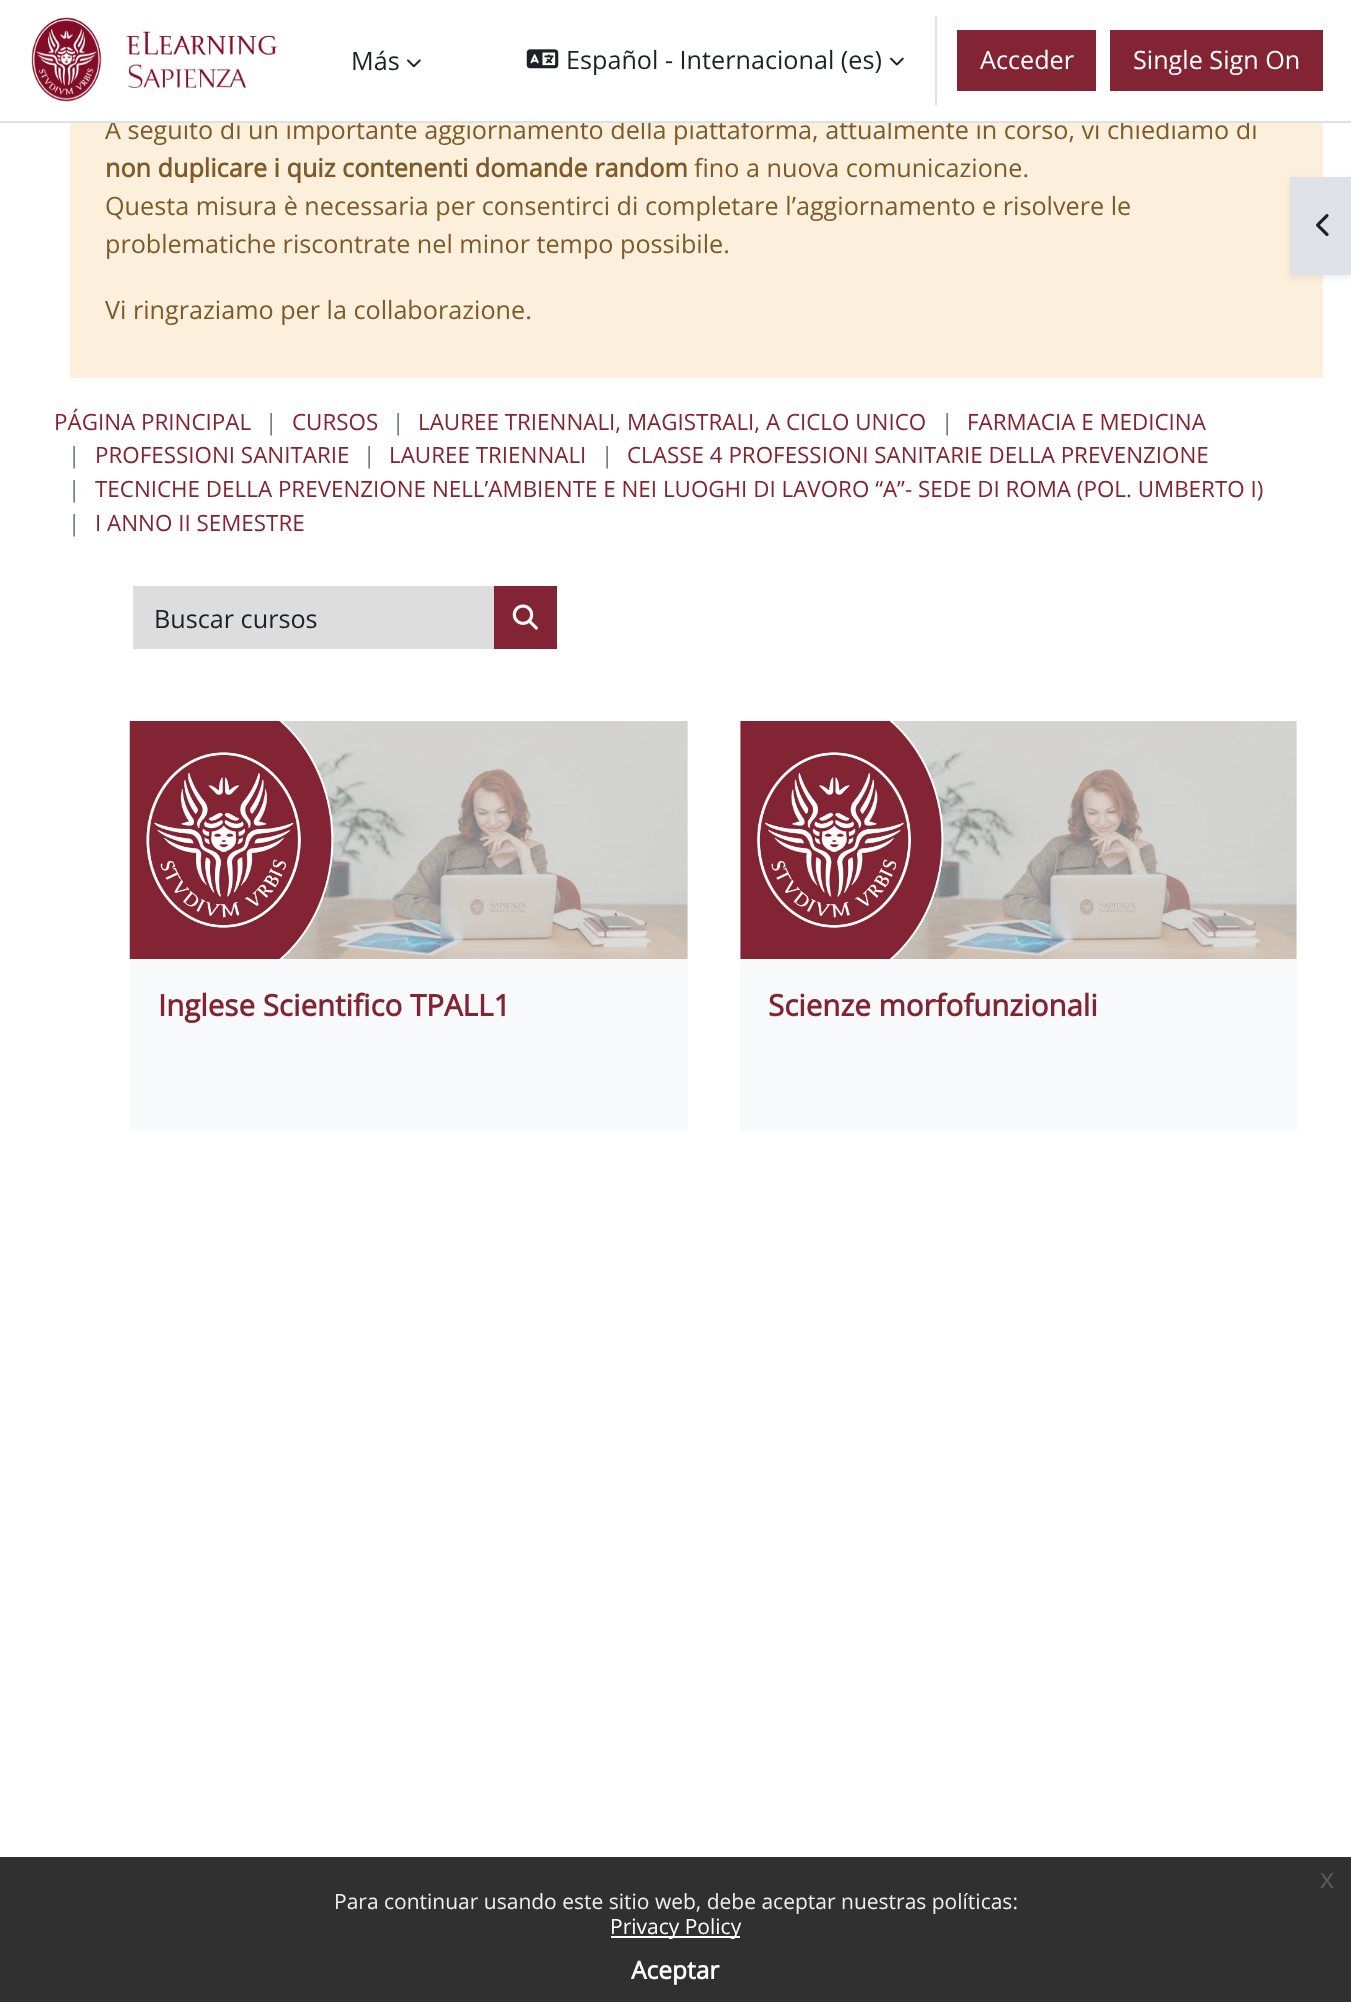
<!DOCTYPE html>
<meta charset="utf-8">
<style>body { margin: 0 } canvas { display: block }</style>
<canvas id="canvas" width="1351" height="2002"></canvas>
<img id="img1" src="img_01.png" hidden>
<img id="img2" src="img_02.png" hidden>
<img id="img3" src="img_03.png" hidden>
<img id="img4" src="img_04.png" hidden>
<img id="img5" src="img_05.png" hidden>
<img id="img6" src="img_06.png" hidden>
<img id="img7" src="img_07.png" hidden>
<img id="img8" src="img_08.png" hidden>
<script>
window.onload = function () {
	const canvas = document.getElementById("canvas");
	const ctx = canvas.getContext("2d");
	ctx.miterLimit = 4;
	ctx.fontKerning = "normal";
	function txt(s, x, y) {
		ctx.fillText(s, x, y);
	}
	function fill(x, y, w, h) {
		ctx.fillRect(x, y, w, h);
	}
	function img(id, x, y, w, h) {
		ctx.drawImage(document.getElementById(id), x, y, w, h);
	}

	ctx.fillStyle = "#FFFFFF";
	fill(0, 0, 1351, 2002);
	img("img1", 31, 17, 246, 85);
	img("img2", 407, 59, 14, 9);
	img("img3", 526, 49, 33, 20);
	img("img4", 890, 57, 14, 9);
	ctx.fillStyle = "#DEE2E6";
	fill(935, 16, 2, 89);
	ctx.fillStyle = "#822433";
	fill(957, 30, 139, 61);
	fill(1110, 30, 213, 61);
	ctx.fillStyle = "#FCEFDC";
	fill(70, 123, 1253, 255);
	ctx.fillStyle = "rgba(0, 0, 0, 0.07)";
	ctx.filter = "blur(3.5px)";
	ctx.beginPath();
	ctx.rect(1290, 180, 61, 98);
	ctx.fill();
	ctx.filter = "none";
	ctx.fillStyle = "#DEE2E6";
	fill(1290, 177, 61, 98);
	img("img5", 1316, 214, 13, 22);
	ctx.fillStyle = "#DDDDDD";
	fill(133, 586, 361, 63);
	ctx.fillStyle = "#822433";
	fill(494, 586, 63, 63);
	img("img6", 512, 604, 26, 26);
	ctx.fillStyle = "#F8F9FA";
	fill(130, 721, 558, 410);
	img("img7", 129, 721, 559, 238);
	fill(740, 721, 557, 410);
	img("img8", 740, 721, 557, 238);
	ctx.fillStyle = "#303030";
	fill(0, 1857, 1351, 145);
	ctx.fillStyle = "#FFFFFF";
	fill(611, 1936, 129, 2);
	ctx.font = "25.2px Open Sans";
	ctx.fillStyle = "#1D2125";
	txt("Más", 351, 70);
	txt("Español - Internacional (es)", 566, 69);
	ctx.fillStyle = "#FFFFFF";
	txt("Acceder", 980, 69);
	txt("Single Sign On", 1133, 69);
	ctx.fillStyle = "#7D5A29";
	txt("A seguito di un importante aggiornamento della piattaforma, attualmente in corso, vi chiediamo di", 105, 139);
	ctx.fillStyle = "#DEE2E6";
	fill(0, 121, 1351, 2);
	ctx.fillStyle = "#FFFFFF";
	fill(112, 119, 1144, 2);
	ctx.font = "bold 25.2px Open Sans";
	ctx.fillStyle = "#7D5A29";
	txt("non duplicare i quiz contenenti domande random", 105, 177);
	ctx.font = "25.2px Open Sans";
	txt("fino a nuova comunicazione.", 694, 177);
	txt("Questa misura è necessaria per consentirci di completare l’aggiornamento e risolvere le", 105, 215);
	txt("problematiche riscontrate nel minor tempo possibile.", 105, 253);
	txt("Vi ringraziamo per la collaborazione.", 105, 319);
	ctx.font = "22.4px Open Sans";
	ctx.fillStyle = "#822433";
	txt("PÁGINA PRINCIPAL", 54, 430);
	ctx.fillStyle = "#6A737B";
	txt("|", 265, 430);
	ctx.fillStyle = "#822433";
	txt("CURSOS", 292, 430);
	ctx.fillStyle = "#6A737B";
	txt("|", 392, 430);
	ctx.fillStyle = "#822433";
	txt("LAUREE TRIENNALI, MAGISTRALI, A CICLO UNICO", 418, 430);
	ctx.fillStyle = "#6A737B";
	txt("|", 941, 430);
	ctx.fillStyle = "#822433";
	txt("FARMACIA E MEDICINA", 967, 430);
	ctx.fillStyle = "#6A737B";
	txt("|", 68, 463);
	ctx.fillStyle = "#822433";
	txt("PROFESSIONI SANITARIE", 95, 463);
	ctx.fillStyle = "#6A737B";
	txt("|", 363, 463);
	ctx.fillStyle = "#822433";
	txt("LAUREE TRIENNALI", 389, 463);
	ctx.fillStyle = "#6A737B";
	txt("|", 601, 463);
	ctx.fillStyle = "#822433";
	txt("CLASSE 4 PROFESSIONI SANITARIE DELLA PREVENZIONE", 627, 463);
	ctx.fillStyle = "#6A737B";
	txt("|", 68, 497);
	ctx.fillStyle = "#822433";
	txt("TECNICHE DELLA PREVENZIONE NELL’AMBIENTE E NEI LUOGHI DI LAVORO “A”- SEDE DI ROMA (POL. UMBERTO I)", 95, 497);
	ctx.fillStyle = "#6A737B";
	txt("|", 68, 531);
	ctx.fillStyle = "#822433";
	txt("I ANNO II SEMESTRE", 95, 531);
	ctx.font = "25.2px Open Sans";
	ctx.fillStyle = "#1D2125";
	txt("Buscar cursos", 154, 628);
	ctx.font = "bold 29.5px Open Sans";
	ctx.fillStyle = "#822433";
	txt("Inglese Scientifico TPALL1", 158, 1016);
	txt("Scienze morfofunzionali", 768, 1016);
	ctx.font = "28px Liberation Sans";
	ctx.fillStyle = "#595959";
	txt("x", 1320, 1888);
	ctx.font = "21px Open Sans";
	ctx.fillStyle = "#EFEFEF";
	txt("Para continuar usando este sitio web, debe aceptar nuestras políticas:", 334, 1909);
	ctx.fillStyle = "#FFFFFF";
	txt("Privacy Policy", 610, 1934);
	ctx.font = "bold 24.5px Open Sans";
	txt("Aceptar", 631, 1979);
};
</script>
